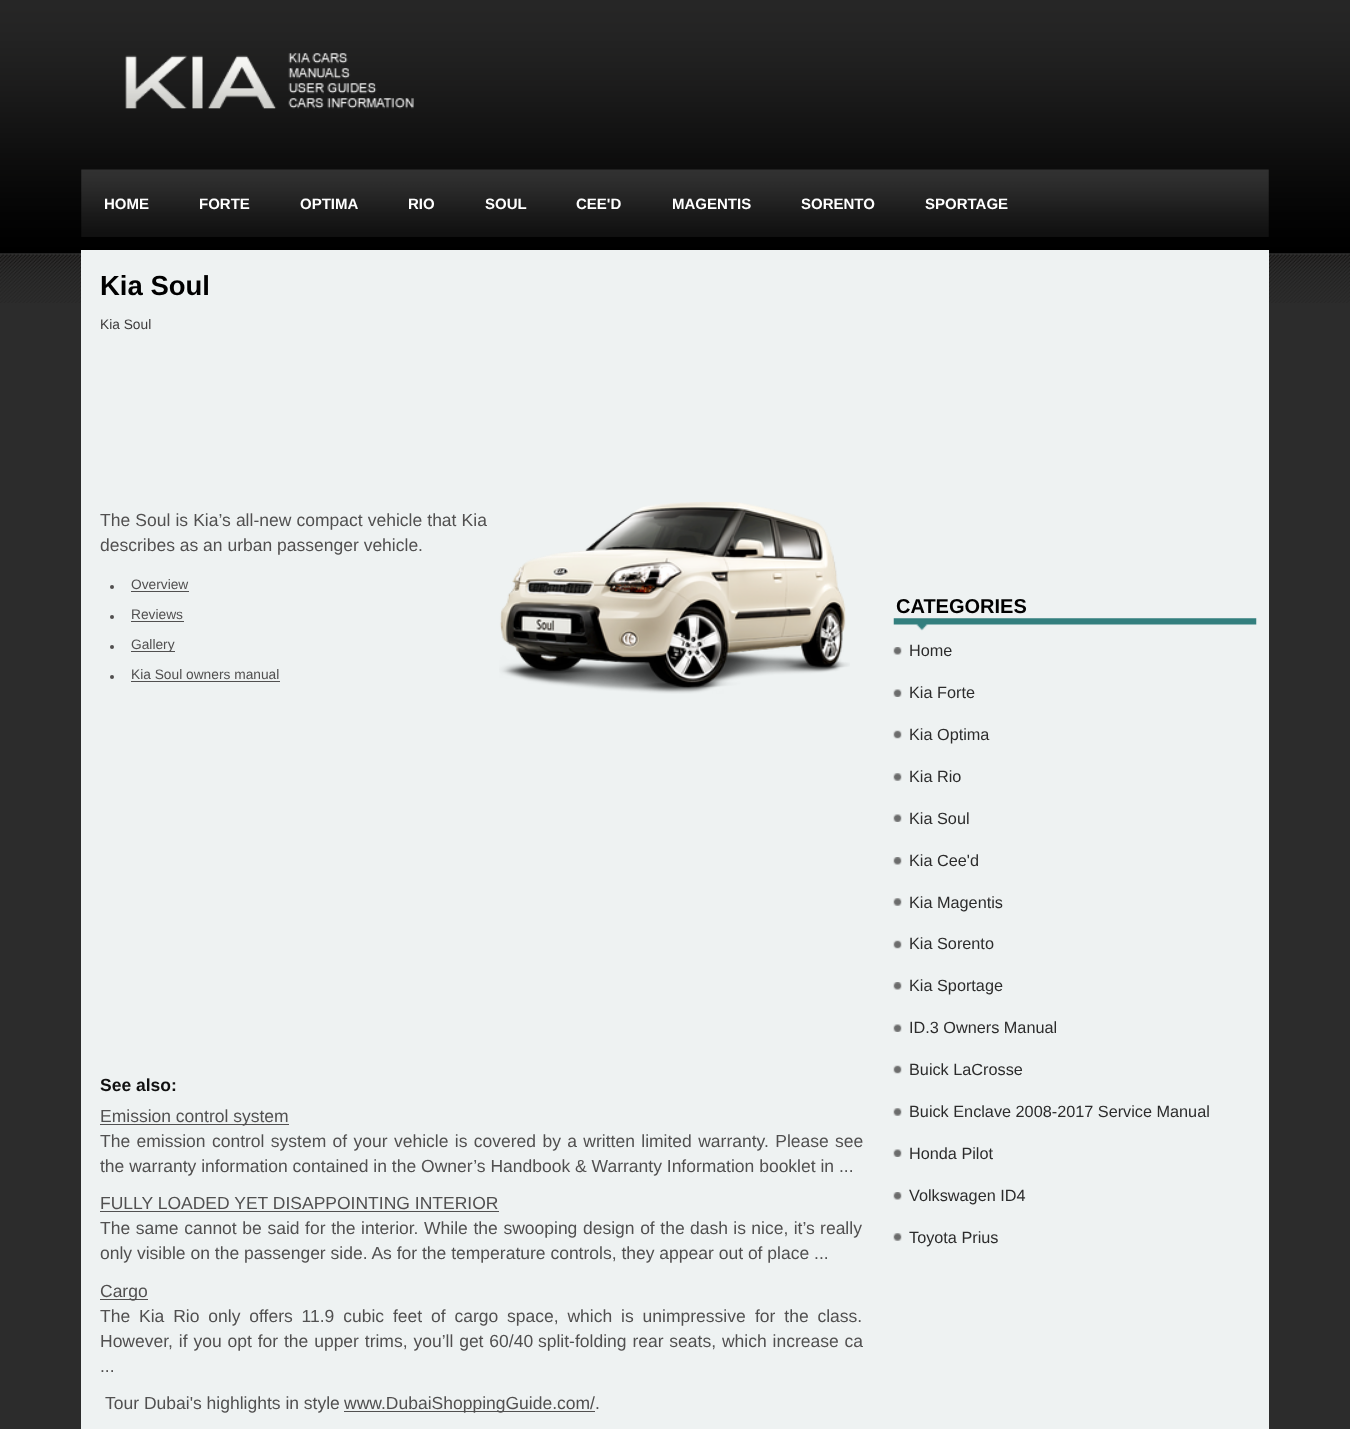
<!DOCTYPE html>
<meta charset="utf-8">
<style>body { margin: 0 } canvas { display: block }</style>
<canvas id="canvas" width="1350" height="1429"></canvas>
<img id="img1" src="img_01.png" hidden>
<img id="img2" src="img_02.png" hidden>
<img id="img3" src="img_03.png" hidden>
<img id="img4" src="img_04.png" hidden>
<img id="img5" src="img_05.png" hidden>
<img id="img6" src="img_06.png" hidden>
<img id="img7" src="img_07.png" hidden>
<img id="img8" src="img_08.png" hidden>
<img id="img9" src="img_09.png" hidden>
<script>
window.onload = function () {
	const canvas = document.getElementById("canvas");
	const ctx = canvas.getContext("2d");
	ctx.miterLimit = 4;
	ctx.fontKerning = "normal";
	function txt(s, x, y) {
		ctx.fillText(s, x, y);
	}
	function fill(x, y, w, h) {
		ctx.fillRect(x, y, w, h);
	}
	function img(id, x, y, w, h) {
		ctx.drawImage(document.getElementById(id), x, y, w, h);
	}

	ctx.fillStyle = "#2C2C2C";
	fill(0, 0, 1350, 1429);
	img("img1", 0, 0, 1350, 303);
	img("img2", 125, 53, 289, 56);
	img("img3", 81, 169, 1188, 68);
	ctx.fillStyle = "#EEF2F2";
	fill(81, 250, 1188, 1179);
	img("img4", 499, 502, 351, 192);
	ctx.fillStyle = "#515050";
	ctx.beginPath();
	ctx.arc(112, 587, 2, 0, Math.PI * 2);
	ctx.fill();
	fill(131, 591, 58, 1);
	ctx.beginPath();
	ctx.arc(112, 617, 2, 0, Math.PI * 2);
	ctx.fill();
	fill(131, 621, 53, 1);
	ctx.beginPath();
	ctx.arc(112, 647, 2, 0, Math.PI * 2);
	ctx.fill();
	fill(131, 651, 44, 1);
	ctx.beginPath();
	ctx.arc(112, 677, 2, 0, Math.PI * 2);
	ctx.fill();
	fill(131, 681, 149, 1);
	fill(100, 1124, 189, 1);
	fill(100, 1211, 399, 1);
	fill(100, 1299, 48, 1);
	fill(344, 1411, 251, 1);
	img("img5", 893, 618, 364, 13);
	img("img6", 893, 647, 9, 8);
	img("img7", 893, 689, 9, 8);
	img("img8", 893, 730, 9, 9);
	img("img9", 893, 773, 9, 8);
	img("img7", 893, 814, 9, 8);
	img("img6", 893, 857, 9, 8);
	img("img9", 893, 898, 9, 8);
	img("img8", 893, 940, 9, 9);
	img("img6", 893, 982, 9, 8);
	img("img7", 893, 1024, 9, 8);
	img("img8", 893, 1065, 9, 9);
	img("img9", 893, 1108, 9, 8);
	img("img7", 893, 1149, 9, 8);
	img("img6", 893, 1192, 9, 8);
	img("img9", 893, 1233, 9, 8);
	ctx.font = "bold 15px Liberation Sans";
	ctx.fillStyle = "#FFFFFF";
	txt("HOME", 104, 209);
	txt("FORTE", 199, 209);
	txt("OPTIMA", 300, 209);
	txt("RIO", 408, 209);
	txt("SOUL", 485, 209);
	txt("CEE'D", 576, 209);
	txt("MAGENTIS", 672, 209);
	txt("SORENTO", 801, 209);
	txt("SPORTAGE", 925, 209);
	ctx.font = "bold 27.5px Liberation Sans";
	ctx.fillStyle = "#000000";
	txt("Kia Soul", 100, 295);
	ctx.font = "13.75px Liberation Sans";
	ctx.fillStyle = "#3E3C3C";
	txt("Kia Soul", 100, 329);
	ctx.wordSpacing = "0.25px";
	ctx.font = "17.5px Liberation Sans";
	ctx.fillStyle = "#515050";
	txt("The Soul is Kia’s all-new compact vehicle that Kia", 100, 526);
	ctx.wordSpacing = "0px";
	txt("describes as an urban passenger vehicle.", 100, 551);
	ctx.font = "13.75px Liberation Sans";
	txt("Overview", 131, 589);
	txt("Reviews", 131, 619);
	txt("Gallery", 131, 649);
	txt("Kia Soul owners manual", 131, 679);
	ctx.font = "bold 17.5px Liberation Sans";
	ctx.fillStyle = "#111111";
	txt("See also:", 100, 1091);
	ctx.font = "17.5px Liberation Sans";
	ctx.fillStyle = "#515050";
	txt("Emission control system", 100, 1122);
	ctx.wordSpacing = "1.5px";
	txt("The emission control system of your vehicle is covered by a written limited warranty. Please see", 100, 1147);
	ctx.wordSpacing = "0px";
	txt("the warranty information contained in the Owner’s Handbook & Warranty Information booklet in ...", 100, 1172);
	txt("FULLY LOADED YET DISAPPOINTING INTERIOR", 100, 1209);
	ctx.wordSpacing = "0.75px";
	txt("The same cannot be said for the interior. While the swooping design of the", 100, 1234);
	ctx.wordSpacing = "0.5px";
	txt("dash is nice, it’s really", 690, 1234);
	ctx.wordSpacing = "0px";
	txt("only visible on the passenger side. As for the temperature controls, they appear out of place ...", 100, 1259);
	txt("Cargo", 100, 1297);
	ctx.wordSpacing = "4px";
	txt("The Kia Rio only offers 11.9 cubic feet of cargo space, which is unimpressive", 100, 1322);
	txt("for the class.", 755, 1322);
	ctx.wordSpacing = "1px";
	txt("However, if you opt for the upper trims, you’ll get 60/40", 100, 1347);
	txt("split-folding rear seats, which increase ca", 538, 1347);
	ctx.wordSpacing = "0px";
	txt("...", 100, 1372);
	txt("Tour Dubai's highlights in style", 105, 1409);
	txt("www.DubaiShoppingGuide.com/.", 344, 1409);
	ctx.font = "bold 20px Liberation Sans";
	ctx.fillStyle = "#000000";
	txt("CATEGORIES", 896, 613);
	ctx.font = "16.25px Liberation Sans";
	ctx.fillStyle = "#2C2C2C";
	txt("Home", 909, 656);
	txt("Kia Forte", 909, 698);
	txt("Kia Optima", 909, 740);
	txt("Kia Rio", 909, 782);
	txt("Kia Soul", 909, 824);
	txt("Kia Cee'd", 909, 866);
	txt("Kia Magentis", 909, 908);
	txt("Kia Sorento", 909, 949);
	txt("Kia Sportage", 909, 991);
	txt("ID.3 Owners Manual", 909, 1033);
	txt("Buick LaCrosse", 909, 1075);
	txt("Buick Enclave 2008-2017 Service Manual", 909, 1117);
	txt("Honda Pilot", 909, 1159);
	txt("Volkswagen ID4", 909, 1201);
	txt("Toyota Prius", 909, 1243);
};
</script>
